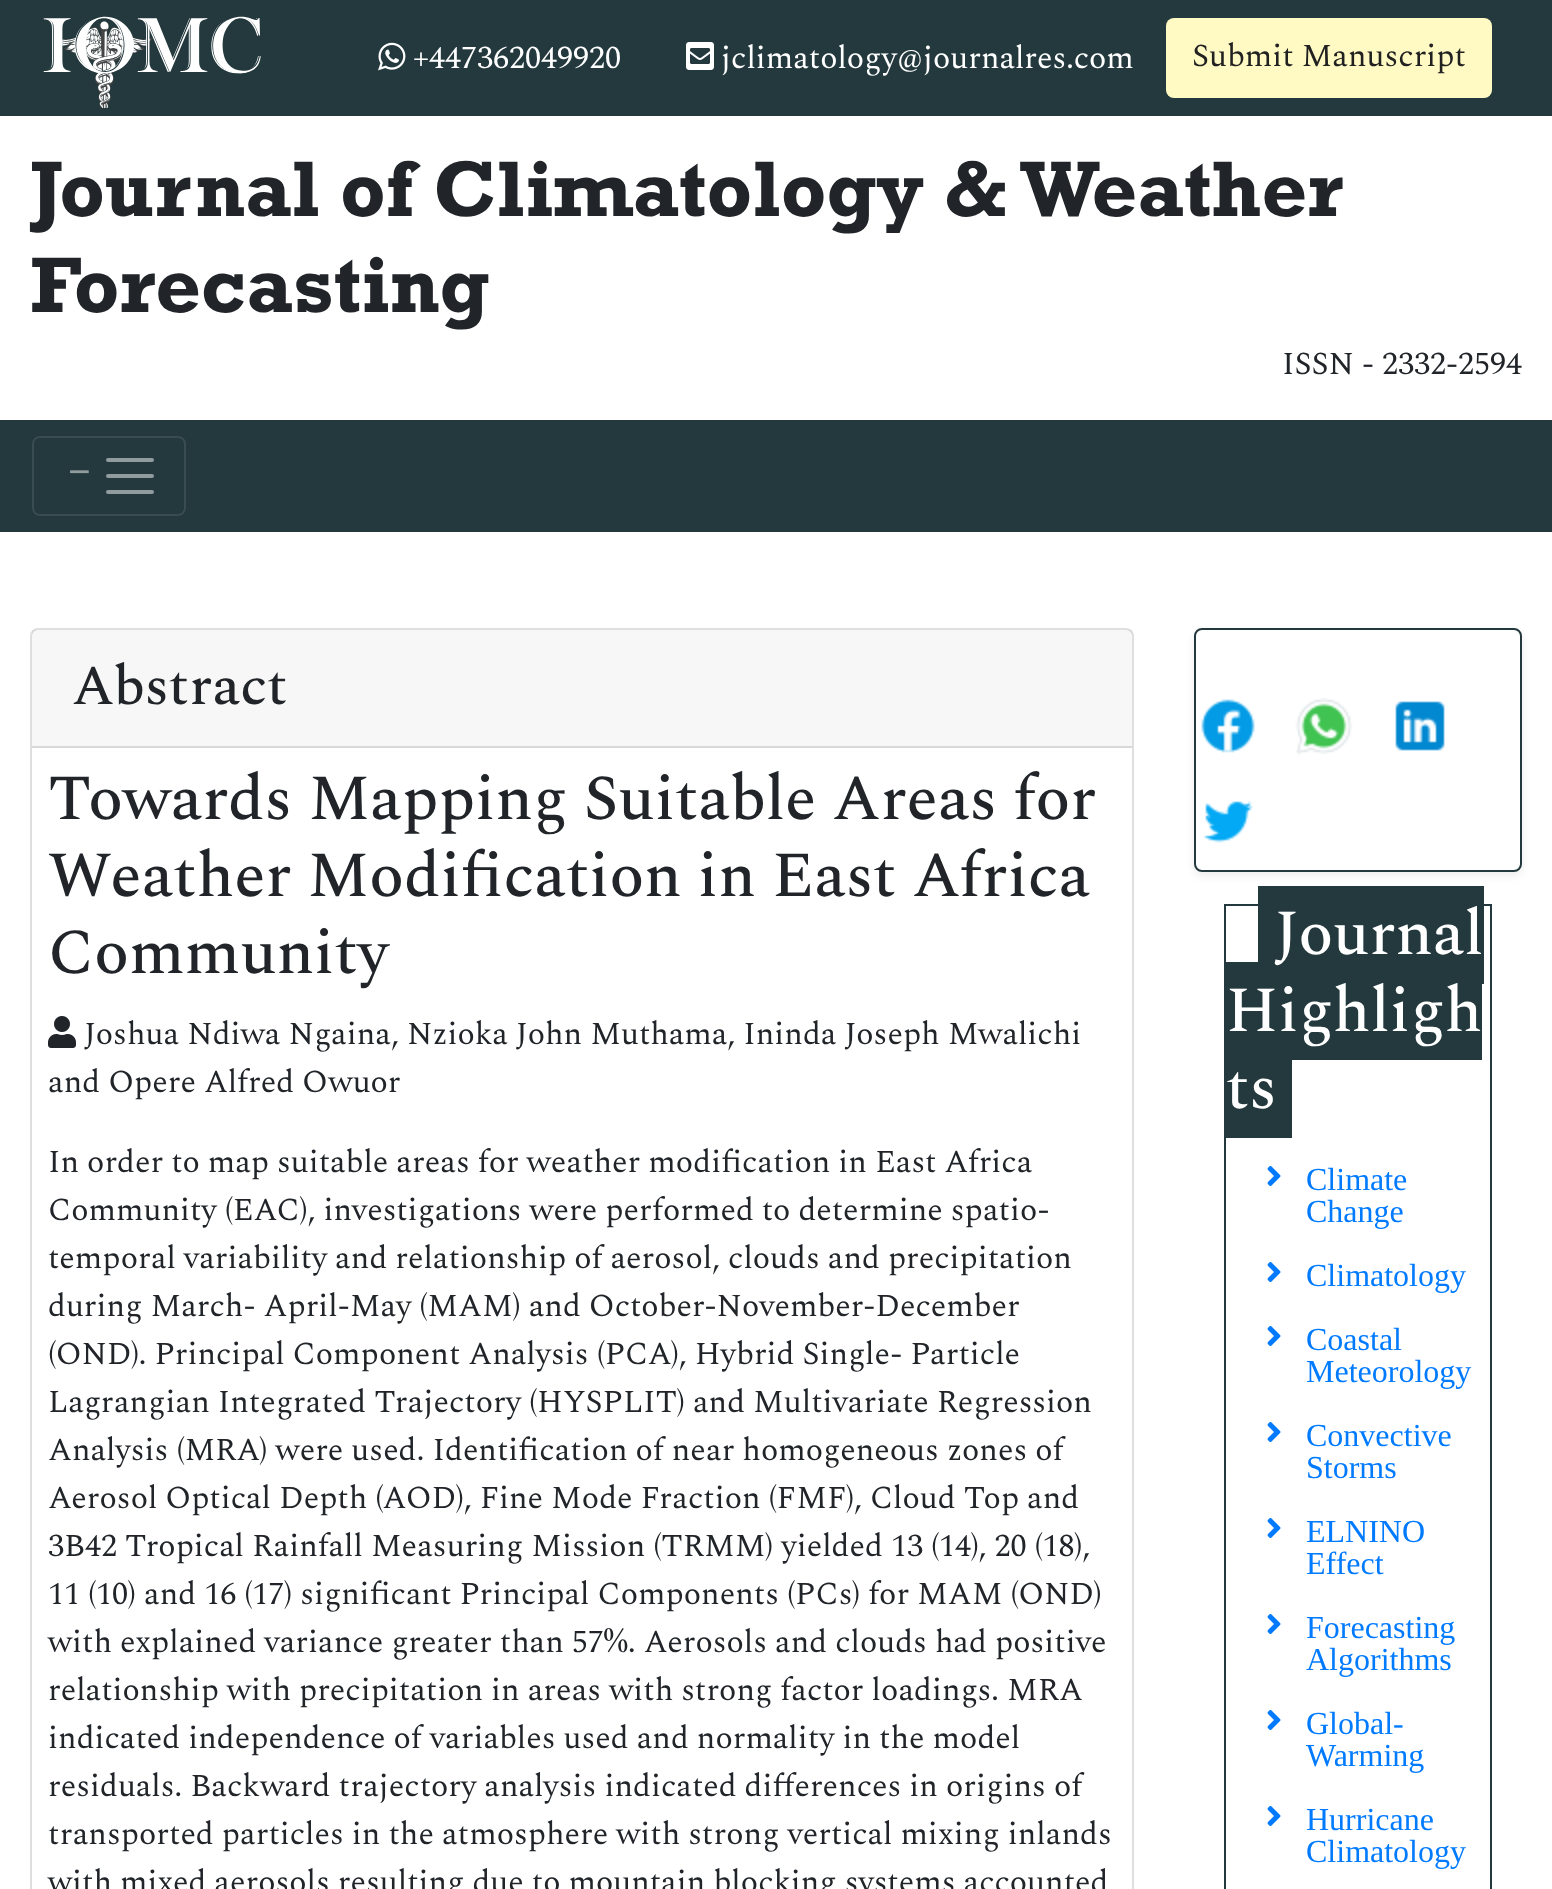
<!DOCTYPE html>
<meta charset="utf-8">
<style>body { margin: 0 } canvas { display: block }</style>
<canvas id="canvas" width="1552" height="1889"></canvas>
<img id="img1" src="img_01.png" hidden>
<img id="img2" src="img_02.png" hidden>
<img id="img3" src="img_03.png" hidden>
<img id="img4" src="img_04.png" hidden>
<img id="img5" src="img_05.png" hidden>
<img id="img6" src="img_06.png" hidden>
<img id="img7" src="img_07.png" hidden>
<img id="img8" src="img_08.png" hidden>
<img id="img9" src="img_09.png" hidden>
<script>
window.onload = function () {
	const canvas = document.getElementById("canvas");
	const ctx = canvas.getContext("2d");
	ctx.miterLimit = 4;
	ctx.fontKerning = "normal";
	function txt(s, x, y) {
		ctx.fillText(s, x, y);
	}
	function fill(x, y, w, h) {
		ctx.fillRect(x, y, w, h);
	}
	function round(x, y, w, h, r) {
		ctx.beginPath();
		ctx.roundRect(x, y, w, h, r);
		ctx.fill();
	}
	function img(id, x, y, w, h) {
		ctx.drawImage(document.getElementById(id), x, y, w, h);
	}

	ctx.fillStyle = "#FFFFFF";
	fill(0, 0, 1552, 1889);
	ctx.fillStyle = "#23393D";
	fill(0, 0, 1552, 116);
	img("img1", 43, 16, 218, 92);
	img("img2", 378, 42, 28, 29);
	img("img3", 686, 42, 28, 28);
	ctx.fillStyle = "#FFF9C4";
	round(1166, 18, 326, 80, 8);
	ctx.fillStyle = "#23393D";
	fill(0, 420, 1552, 112);
	ctx.beginPath();
	ctx.roundRect(33, 437, 152, 78, 7);
	ctx.strokeStyle = "#394D50";
	ctx.lineWidth = 2;
	ctx.stroke();
	ctx.beginPath();
	ctx.moveTo(108, 460);
	ctx.lineTo(152, 460);
	ctx.moveTo(108, 476);
	ctx.lineTo(152, 476);
	ctx.moveTo(108, 492);
	ctx.lineTo(152, 492);
	ctx.strokeStyle = "#919C9E";
	ctx.lineWidth = 4;
	ctx.lineCap = "round";
	ctx.stroke();
	ctx.beginPath();
	ctx.roundRect(31, 629, 1102, 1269, 7);
	ctx.strokeStyle = "#DFDFDF";
	ctx.lineWidth = 2;
	ctx.stroke();
	ctx.fillStyle = "rgba(0, 0, 0, 0.03)";
	fill(32, 630, 1100, 116);
	ctx.fillStyle = "#D8D8D8";
	fill(32, 746, 1100, 2);
	img("img4", 48, 1016, 28, 32);
	ctx.fillStyle = "rgba(0, 0, 0, 0.07)";
	ctx.filter = "blur(4px)";
	ctx.beginPath();
	ctx.roundRect(1194, 632, 328, 244, 8);
	ctx.fill();
	ctx.filter = "none";
	ctx.fillStyle = "#FFFFFF";
	ctx.beginPath();
	ctx.roundRect(1195, 629, 326, 242, 7);
	ctx.fill();
	ctx.strokeStyle = "#23393D";
	ctx.stroke();
	img("img5", 1201, 699, 54, 54);
	img("img6", 1295, 697, 58, 58);
	img("img7", 1395, 701, 50, 50);
	img("img8", 1203, 801, 50, 42);
	ctx.strokeRect(1225, 905, 266, 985);
	ctx.fillStyle = "#23393D";
	fill(1258, 886, 226, 98);
	fill(1226, 962, 256, 98);
	fill(1226, 1060, 66, 78);
	img("img9", 1267, 1166, 14, 20);
	img("img9", 1267, 1262, 14, 20);
	img("img9", 1267, 1326, 14, 20);
	img("img9", 1267, 1422, 14, 20);
	img("img9", 1267, 1518, 14, 20);
	img("img9", 1267, 1614, 14, 20);
	img("img9", 1267, 1710, 14, 20);
	img("img9", 1267, 1806, 14, 20);
	ctx.font = "32px Spectral";
	ctx.fillStyle = "#FFFFFF";
	txt("+447362049920", 413, 68);
	txt("jclimatology@journalres.com", 721, 68);
	ctx.fillStyle = "#212121";
	txt("Submit Manuscript", 1192, 66);
	ctx.font = "bold 80px Rockwell";
	ctx.fillStyle = "#212529";
	txt("Journal of Climatology & Weather", 30, 216);
	txt("Forecasting", 30, 312);
	ctx.font = "32px Spectral";
	txt("ISSN - 2332-2594", 1282, 374);
	ctx.font = "bold 40px Liberation Serif";
	ctx.fillStyle = "#919C9E";
	txt("−", 68, 485);
	ctx.font = "500 56px Spectral";
	ctx.fillStyle = "#212529";
	txt("Abstract", 72, 704);
	ctx.font = "500 64px Spectral";
	txt("Towards Mapping Suitable Areas for", 48, 819);
	txt("Weather Modification in East Africa", 48, 896);
	txt("Community", 48, 973);
	ctx.font = "32px Spectral";
	txt("Joshua Ndiwa Ngaina, Nzioka John Muthama, Ininda Joseph Mwalichi", 84, 1044);
	txt("and Opere Alfred Owuor", 48, 1092);
	txt("In order to map suitable areas for weather modification in East Africa", 48, 1172);
	txt("Community (EAC), investigations were performed to determine spatio-", 48, 1220);
	txt("temporal variability and relationship of aerosol, clouds and precipitation", 48, 1268);
	txt("during March- April-May (MAM) and October-November-December", 48, 1316);
	txt("(OND). Principal Component Analysis (PCA), Hybrid Single- Particle", 48, 1364);
	txt("Lagrangian Integrated Trajectory (HYSPLIT) and Multivariate Regression", 48, 1412);
	txt("Analysis (MRA) were used. Identification of near homogeneous zones of", 48, 1460);
	txt("Aerosol Optical Depth (AOD), Fine Mode Fraction (FMF), Cloud Top and", 48, 1508);
	txt("3B42 Tropical Rainfall Measuring Mission (TRMM) yielded 13 (14), 20 (18),", 48, 1556);
	txt("11 (10) and 16 (17) significant Principal Components (PCs) for MAM (OND)", 48, 1604);
	txt("with explained variance greater than 57%. Aerosols and clouds had positive", 48, 1652);
	txt("relationship with precipitation in areas with strong factor loadings. MRA", 48, 1700);
	txt("indicated independence of variables used and normality in the model", 48, 1748);
	txt("residuals. Backward trajectory analysis indicated differences in origins of", 48, 1796);
	txt("transported particles in the atmosphere with strong vertical mixing inlands", 48, 1844);
	txt("with mixed aerosols resulting due to mountain blocking systems accounted", 48, 1892);
	ctx.font = "500 64px Spectral";
	ctx.fillStyle = "#FFFFFF";
	txt("Journal", 1274, 954);
	txt("Highligh", 1226, 1031);
	txt("ts", 1226, 1108);
	ctx.font = "32px Liberation Serif";
	ctx.fillStyle = "#007BFF";
	txt("Climate", 1306, 1190);
	txt("Change", 1306, 1222);
	txt("Climatology", 1306, 1286);
	txt("Coastal", 1306, 1350);
	txt("Meteorology", 1306, 1382);
	txt("Convective", 1306, 1446);
	txt("Storms", 1306, 1478);
	txt("ELNINO", 1306, 1542);
	txt("Effect", 1306, 1574);
	txt("Forecasting", 1306, 1638);
	txt("Algorithms", 1306, 1670);
	txt("Global-", 1306, 1734);
	txt("Warming", 1306, 1766);
	txt("Hurricane", 1306, 1830);
	txt("Climatology", 1306, 1862);
};
</script>
